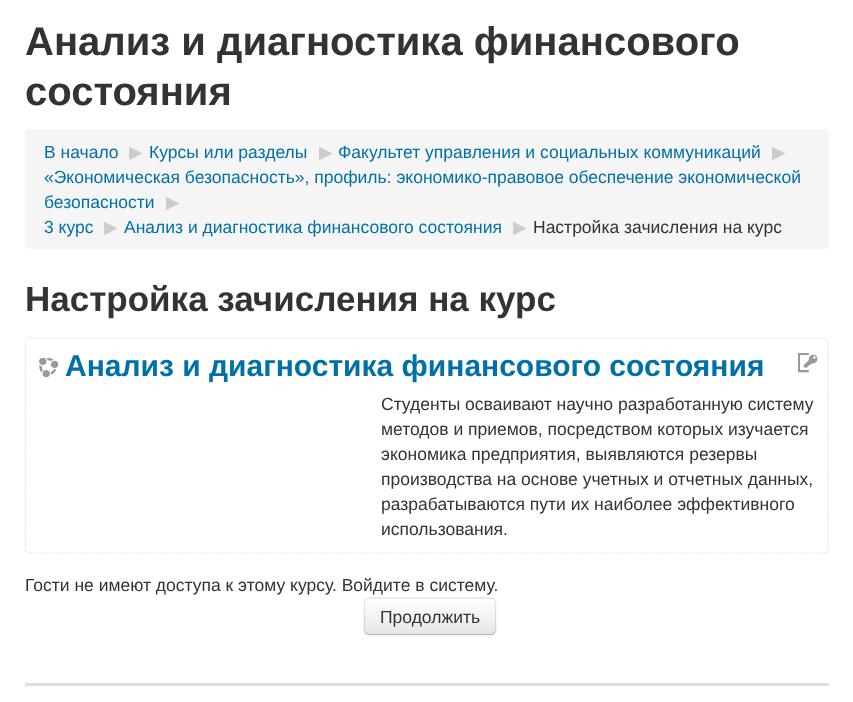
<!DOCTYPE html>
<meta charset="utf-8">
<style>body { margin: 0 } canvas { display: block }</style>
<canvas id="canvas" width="853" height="702"></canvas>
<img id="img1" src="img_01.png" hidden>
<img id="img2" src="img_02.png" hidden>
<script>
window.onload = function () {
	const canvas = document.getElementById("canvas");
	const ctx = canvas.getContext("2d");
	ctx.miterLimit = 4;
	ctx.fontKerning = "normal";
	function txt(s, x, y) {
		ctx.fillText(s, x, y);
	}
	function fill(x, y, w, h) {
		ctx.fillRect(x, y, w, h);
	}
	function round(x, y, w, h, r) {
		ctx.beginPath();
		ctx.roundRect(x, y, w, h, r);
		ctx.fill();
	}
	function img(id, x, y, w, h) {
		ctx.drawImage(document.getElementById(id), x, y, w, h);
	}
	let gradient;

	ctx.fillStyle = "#FFFFFF";
	fill(0, 0, 853, 702);
	ctx.fillStyle = "#F5F5F5";
	round(25, 129, 804, 120, 5);
	ctx.beginPath();
	ctx.moveTo(30, 338);
	ctx.lineTo(824, 338);
	ctx.bezierCurveTo(826, 338, 828, 340, 828, 342.5);
	ctx.lineTo(828, 549);
	ctx.bezierCurveTo(828, 551, 826, 553, 824, 553);
	ctx.lineTo(30, 553);
	ctx.bezierCurveTo(27.5, 553, 25.5, 551, 25.5, 549);
	ctx.lineTo(25.5, 342.5);
	ctx.bezierCurveTo(25.5, 340, 27.5, 338, 30, 338);
	ctx.closePath();
	ctx.strokeStyle = "#DDDDDD";
	ctx.lineWidth = 1.2;
	ctx.setLineDash([1.25, 1.25]);
	ctx.stroke();
	img("img1", 39, 358, 20, 20);
	img("img2", 798, 353, 20, 20);
	ctx.fillStyle = "rgba(0, 0, 0, 0.05)";
	ctx.filter = "blur(1px)";
	ctx.beginPath();
	ctx.roundRect(364, 599, 132, 37, 5);
	ctx.fill();
	ctx.filter = "none";
	ctx.fillStyle = "#F5F5F5";
	round(364, 598, 132, 37, 5);
	ctx.save();
	ctx.beginPath();
	ctx.roundRect(364, 598, 132, 37, 5);
	ctx.clip();
	gradient = ctx.createLinearGradient(430, 599, 430, 634);
	gradient.addColorStop(0, "#FFFFFF");
	gradient.addColorStop(1, "#E6E6E6");
	ctx.fillStyle = gradient;
	fill(364, 599, 132, 35);
	ctx.restore();
	ctx.beginPath();
	ctx.moveTo(494.5, 633);
	ctx.lineTo(491, 634.5);
	ctx.lineTo(368.5, 634.5);
	ctx.lineTo(365.5, 633);
	ctx.strokeStyle = "#B3B3B3";
	ctx.setLineDash([]);
	ctx.stroke();
	ctx.beginPath();
	ctx.moveTo(365.5, 633);
	ctx.bezierCurveTo(363, 630.5, 364.5, 624, 364.5, 621);
	ctx.bezierCurveTo(364.5, 593.5, 360, 598, 389, 598);
	ctx.lineTo(471, 598);
	ctx.bezierCurveTo(500, 598, 495.5, 593.5, 495.5, 621);
	ctx.bezierCurveTo(495.5, 624, 497, 630.5, 494.5, 633);
	ctx.strokeStyle = "rgba(0, 0, 0, 0.1)";
	ctx.stroke();
	ctx.fillStyle = "#DDDDDD";
	fill(25, 683, 804, 3);
	ctx.font = "bold 40px Liberation Sans";
	ctx.fillStyle = "#333333";
	txt("Анализ и диагностика финансового", 25, 55);
	txt("состояния", 25, 105);
	ctx.font = "17.5px Liberation Sans";
	ctx.fillStyle = "#0070A8";
	txt("В начало", 44, 158);
	ctx.font = "17.5px DejaVu Sans";
	ctx.fillStyle = "#CCCCCC";
	txt("▶", 129, 158);
	ctx.font = "17.5px Liberation Sans";
	ctx.fillStyle = "#0070A8";
	txt("Курсы или разделы", 149, 158);
	ctx.font = "17.5px DejaVu Sans";
	ctx.fillStyle = "#CCCCCC";
	txt("▶", 319, 158);
	ctx.font = "17.5px Liberation Sans";
	ctx.fillStyle = "#0070A8";
	txt("Факультет управления и социальных коммуникаций", 338, 158);
	ctx.font = "17.5px DejaVu Sans";
	ctx.fillStyle = "#CCCCCC";
	txt("▶", 772, 158);
	ctx.font = "17.5px Liberation Sans";
	ctx.fillStyle = "#0070A8";
	txt("«Экономическая безопасность», профиль: экономико-правовое обеспечение экономической", 44, 183);
	txt("безопасности", 44, 208);
	ctx.font = "17.5px DejaVu Sans";
	ctx.fillStyle = "#CCCCCC";
	txt("▶", 166, 208);
	ctx.font = "17.5px Liberation Sans";
	ctx.fillStyle = "#0070A8";
	txt("3 курс", 44, 233);
	ctx.font = "17.5px DejaVu Sans";
	ctx.fillStyle = "#CCCCCC";
	txt("▶", 104, 233);
	ctx.font = "17.5px Liberation Sans";
	ctx.fillStyle = "#0070A8";
	txt("Анализ и диагностика финансового состояния", 124, 233);
	ctx.font = "17.5px DejaVu Sans";
	ctx.fillStyle = "#CCCCCC";
	txt("▶", 513, 233);
	ctx.font = "17.5px Liberation Sans";
	ctx.fillStyle = "#333333";
	txt("Настройка зачисления на курс", 533, 233);
	ctx.font = "bold 35px Liberation Sans";
	txt("Настройка зачисления на курс", 25, 311);
	ctx.font = "bold 30px Liberation Sans";
	ctx.fillStyle = "#0070A8";
	txt("Анализ и диагностика финансового состояния", 65, 376);
	ctx.font = "17.5px Liberation Sans";
	ctx.fillStyle = "#333333";
	txt("Студенты осваивают научно разработанную систему", 381, 410);
	txt("методов и приемов, посредством которых изучается", 381, 435);
	txt("экономика предприятия, выявляются резервы", 381, 460);
	txt("производства на основе учетных и отчетных данных,", 381, 485);
	txt("разрабатываются пути их наиболее эффективного", 381, 510);
	txt("использования.", 381, 535);
	txt("Гости не имеют доступа к этому курсу. Войдите в систему.", 25, 591);
	txt("Продолжить", 380, 623);
};
</script>
